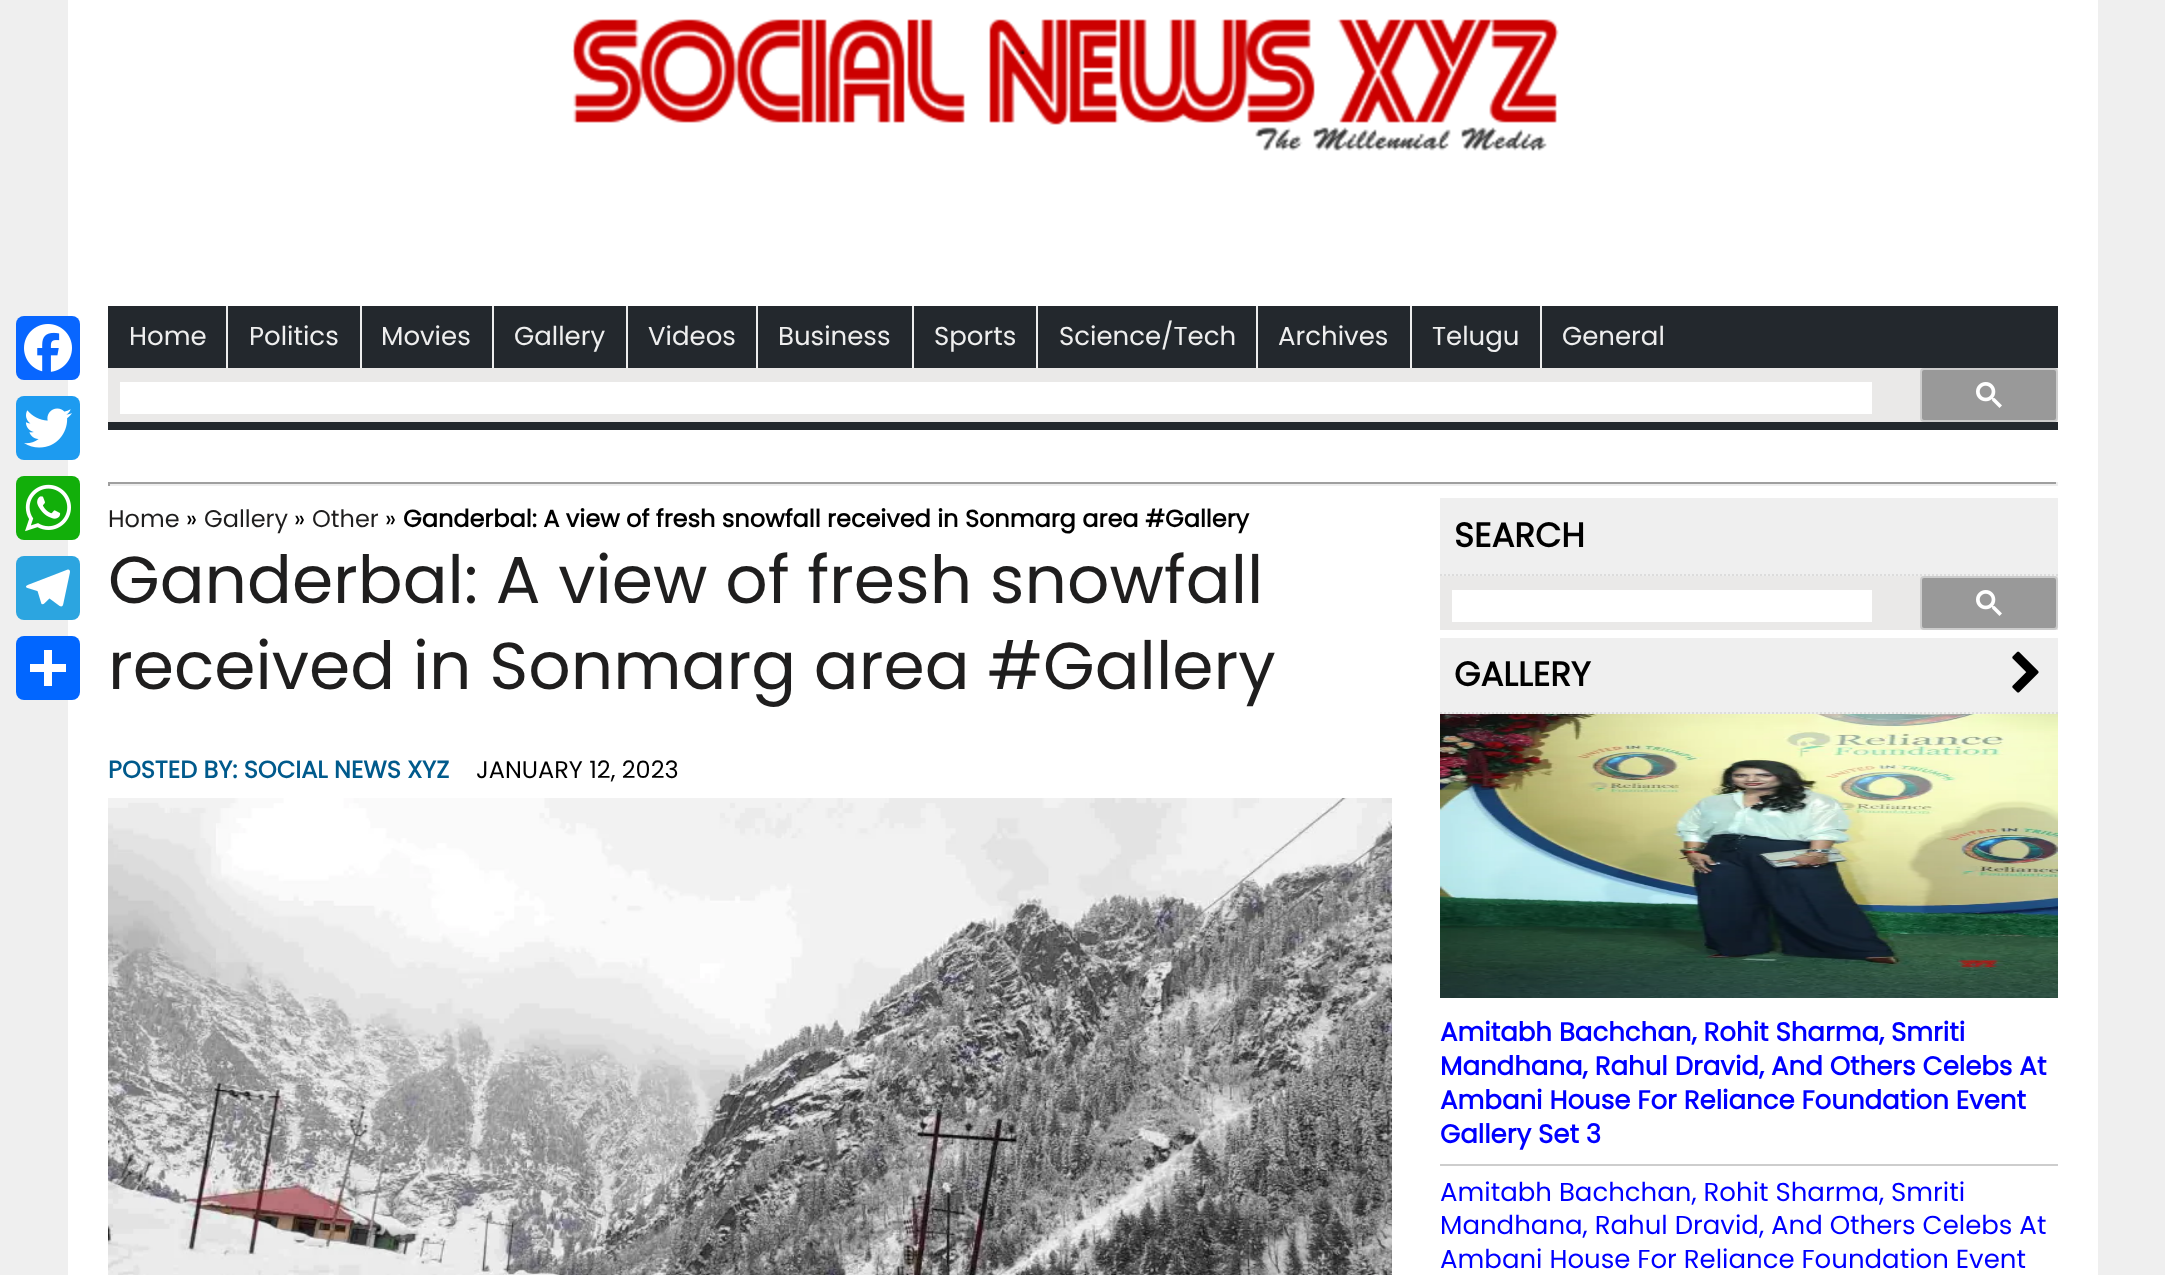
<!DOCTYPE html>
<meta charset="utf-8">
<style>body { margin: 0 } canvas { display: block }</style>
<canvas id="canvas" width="2165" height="1275"></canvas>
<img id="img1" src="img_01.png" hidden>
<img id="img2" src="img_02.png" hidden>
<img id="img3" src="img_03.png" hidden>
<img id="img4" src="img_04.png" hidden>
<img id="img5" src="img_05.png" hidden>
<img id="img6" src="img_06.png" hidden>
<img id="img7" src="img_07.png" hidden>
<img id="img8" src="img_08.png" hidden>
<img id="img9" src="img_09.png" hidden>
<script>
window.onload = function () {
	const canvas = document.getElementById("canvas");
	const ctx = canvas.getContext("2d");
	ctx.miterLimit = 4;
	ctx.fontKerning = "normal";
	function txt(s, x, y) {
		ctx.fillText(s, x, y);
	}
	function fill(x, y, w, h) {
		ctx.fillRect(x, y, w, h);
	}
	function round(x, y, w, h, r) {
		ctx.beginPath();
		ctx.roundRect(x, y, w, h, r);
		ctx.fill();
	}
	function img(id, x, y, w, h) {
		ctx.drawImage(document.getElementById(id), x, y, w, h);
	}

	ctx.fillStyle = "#EFEFEF";
	fill(0, 0, 2165, 1275);
	ctx.fillStyle = "#FFFFFF";
	fill(68, 0, 2030, 1275);
	ctx.fillStyle = "#0866FF";
	round(16, 316, 64, 64, 8);
	img("img1", 24, 324, 48, 48);
	ctx.fillStyle = "#1D9BF0";
	round(16, 396, 64, 64, 8);
	img("img2", 24, 408, 48, 40);
	ctx.fillStyle = "#12AF0A";
	round(16, 476, 64, 64, 8);
	img("img3", 25, 484, 46, 48);
	ctx.fillStyle = "#2CA5E0";
	round(16, 556, 64, 64, 8);
	img("img4", 26, 569, 44, 38);
	ctx.fillStyle = "#0166FF";
	round(16, 636, 64, 64, 8);
	ctx.fillStyle = "#FFFFFF";
	fill(44, 650, 8, 36);
	fill(30, 664, 36, 8);
	img("img5", 571, 19, 988, 132);
	ctx.fillStyle = "#23282D";
	fill(108, 306, 1950, 124);
	ctx.fillStyle = "#EEEEEE";
	fill(226, 306, 2, 62);
	fill(360, 306, 2, 62);
	fill(492, 306, 2, 62);
	fill(626, 306, 2, 62);
	fill(756, 306, 2, 62);
	fill(912, 306, 2, 62);
	fill(1036, 306, 2, 62);
	fill(1256, 306, 2, 62);
	fill(1410, 306, 2, 62);
	fill(1540, 306, 2, 62);
	ctx.fillStyle = "#EAE9E8";
	fill(108, 368, 1950, 54);
	ctx.fillStyle = "#FFFFFF";
	fill(120, 382, 1752, 32);
	ctx.fillStyle = "#999999";
	ctx.beginPath();
	ctx.roundRect(1921, 369, 136, 52, 3);
	ctx.fill();
	ctx.strokeStyle = "#CCCCCC";
	ctx.lineWidth = 2;
	ctx.stroke();
	img("img6", 1976, 382, 26, 26);
	ctx.fillStyle = "#9F9F9F";
	fill(108, 482, 1950, 2);
	ctx.fillStyle = "#EEEEEE";
	fill(2056, 482, 2, 4);
	fill(108, 484, 1950, 2);
	ctx.fillStyle = "#9F9F9F";
	fill(108, 482, 2, 4);
	img("img7", 108, 798, 1284, 477);
	ctx.fillStyle = "#EFEFEF";
	fill(1440, 498, 618, 78);
	ctx.beginPath();
	ctx.moveTo(1440, 575);
	ctx.lineTo(2058, 575);
	ctx.strokeStyle = "#DCDCDC";
	ctx.setLineDash([2, 2]);
	ctx.stroke();
	ctx.fillStyle = "#EAE9E8";
	fill(1440, 576, 618, 54);
	ctx.fillStyle = "#FFFFFF";
	fill(1452, 590, 420, 32);
	ctx.fillStyle = "#999999";
	ctx.beginPath();
	ctx.roundRect(1921, 577, 136, 52, 3);
	ctx.fill();
	ctx.strokeStyle = "#CCCCCC";
	ctx.setLineDash([]);
	ctx.stroke();
	img("img6", 1976, 590, 26, 26);
	ctx.fillStyle = "#EFEFEF";
	fill(1440, 638, 618, 76);
	ctx.beginPath();
	ctx.moveTo(1440, 713);
	ctx.lineTo(2058, 713);
	ctx.strokeStyle = "#DCDCDC";
	ctx.setLineDash([2, 2]);
	ctx.stroke();
	img("img8", 2012, 651, 27, 42);
	img("img9", 1440, 714, 618, 284);
	ctx.fillStyle = "#CDCDCD";
	fill(1440, 1164, 618, 2);
	ctx.font = "26px Poppins";
	ctx.fillStyle = "#EEEEEE";
	txt("Home", 129, 345);
	txt("Politics", 249, 345);
	txt("Movies", 381, 345);
	txt("Gallery", 514, 345);
	txt("Videos", 648, 345);
	txt("Business", 778, 345);
	txt("Sports", 934, 345);
	txt("Science/Tech", 1059, 345);
	txt("Archives", 1278, 345);
	txt("Telugu", 1432, 345);
	txt("General", 1562, 345);
	ctx.font = "24px Poppins";
	ctx.fillStyle = "#1F1E1E";
	txt("Home", 108, 527);
	ctx.fillStyle = "#000000";
	txt("»", 186, 527);
	ctx.fillStyle = "#1F1E1E";
	txt("Gallery", 204, 527);
	ctx.fillStyle = "#000000";
	txt("»", 294, 527);
	ctx.fillStyle = "#1F1E1E";
	txt("Other", 312, 527);
	ctx.fillStyle = "#000000";
	txt("»", 385, 527);
	ctx.font = "bold 24px Poppins";
	txt("Ganderbal: A view of fresh snowfall received in Sonmarg area #Gallery", 403, 527);
	ctx.font = "66.4px Poppins";
	ctx.fillStyle = "#1F1E1E";
	txt("Ganderbal: A view of fresh snowfall", 108, 603);
	txt("received in Sonmarg area #Gallery", 108, 689);
	ctx.font = "bold 24px Poppins";
	ctx.fillStyle = "#005A8C";
	txt("POSTED BY: SOCIAL NEWS XYZ", 108, 778);
	ctx.font = "24px Poppins";
	ctx.fillStyle = "#000000";
	txt("JANUARY 12, 2023", 476, 778);
	ctx.font = "bold 34px Poppins";
	txt("SEARCH", 1454, 547);
	txt("GALLERY", 1454, 686);
	ctx.font = "bold 26px Poppins";
	ctx.fillStyle = "#0000FF";
	txt("Amitabh Bachchan, Rohit Sharma, Smriti", 1440, 1041);
	txt("Mandhana, Rahul Dravid, And Others Celebs At", 1440, 1075);
	txt("Ambani House For Reliance Foundation Event", 1440, 1109);
	txt("Gallery Set 3", 1440, 1143);
	ctx.font = "26px Poppins";
	txt("Amitabh Bachchan, Rohit Sharma, Smriti", 1440, 1201);
	txt("Mandhana, Rahul Dravid, And Others Celebs At", 1440, 1234);
	txt("Ambani House For Reliance Foundation Event", 1440, 1268);
};
</script>
